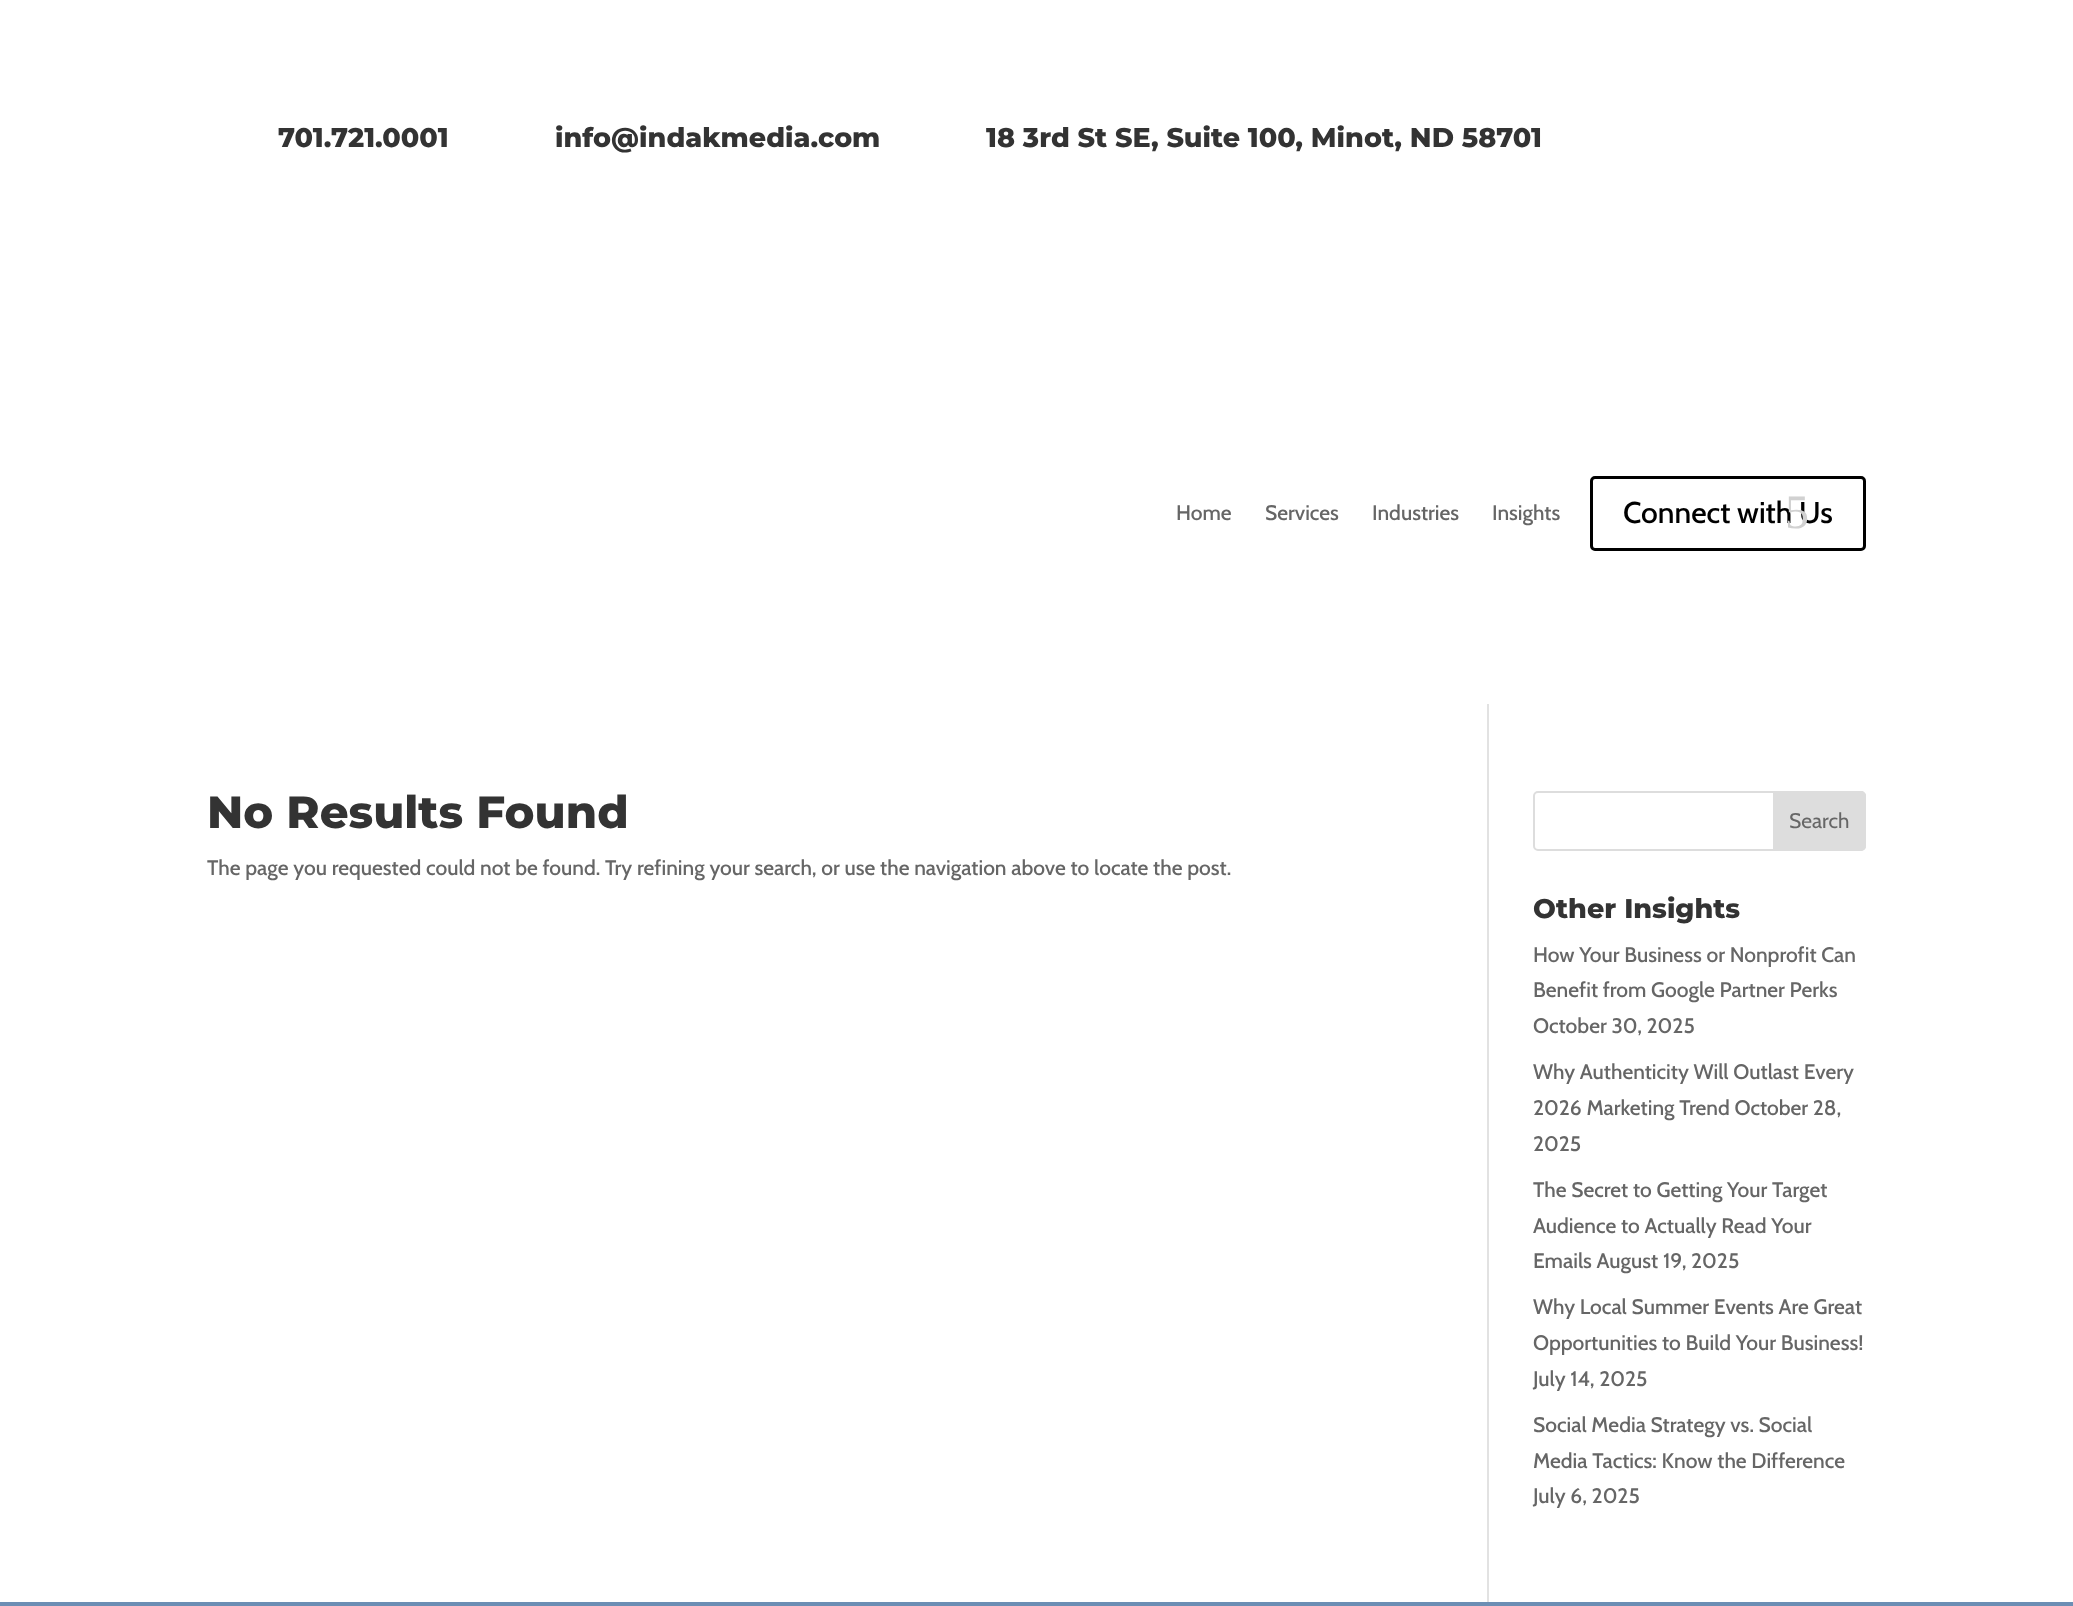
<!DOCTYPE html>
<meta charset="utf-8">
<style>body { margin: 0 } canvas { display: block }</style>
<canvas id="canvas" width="2073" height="1606"></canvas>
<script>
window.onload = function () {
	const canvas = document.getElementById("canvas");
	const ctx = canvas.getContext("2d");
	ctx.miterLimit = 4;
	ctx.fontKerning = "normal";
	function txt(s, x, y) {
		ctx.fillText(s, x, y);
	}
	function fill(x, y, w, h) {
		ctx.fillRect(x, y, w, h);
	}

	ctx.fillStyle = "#FFFFFF";
	fill(0, 0, 2073, 1606);
	ctx.beginPath();
	ctx.roundRect(1591.5, 477.5, 273, 72, 3.5);
	ctx.strokeStyle = "#000000";
	ctx.lineWidth = 3;
	ctx.stroke();
	ctx.fillStyle = "#E2E2E2";
	fill(1487, 704, 2, 898);
	ctx.beginPath();
	ctx.roundRect(1534, 792, 331, 58, 4);
	ctx.strokeStyle = "#DDDDDD";
	ctx.lineWidth = 2;
	ctx.stroke();
	ctx.fillStyle = "#DDDDDD";
	ctx.beginPath();
	ctx.roundRect(1774, 792, 91, 58, [0, 4, 4, 0]);
	ctx.fill();
	ctx.stroke();
	ctx.fillStyle = "#6C8EB4";
	fill(0, 1602, 2073, 4);
	ctx.font = "100 27px Montserrat";
	ctx.fillStyle = "#333333";
	txt("701.721.0001", 278, 147);
	txt("info@indakmedia.com", 555, 147);
	txt("18 3rd St SE, Suite 100, Minot, ND 58701", 986, 147);
	ctx.font = "500 21px Cabin";
	ctx.fillStyle = "#666666";
	txt("Home", 1176, 520);
	txt("Services", 1265, 520);
	txt("Industries", 1372, 520);
	txt("Insights", 1492, 520);
	ctx.font = "500 30px Cabin";
	ctx.fillStyle = "#000000";
	txt("Connect with Us", 1623, 523);
	ctx.font = "48px Liberation Serif";
	ctx.fillStyle = "#D1D1D1";
	txt("5", 1785, 528);
	ctx.font = "100 45px Montserrat";
	ctx.fillStyle = "#333333";
	txt("No Results Found", 207, 828);
	ctx.font = "500 21px Cabin";
	ctx.fillStyle = "#666666";
	txt("The page you requested could not be found. Try refining your search, or use the navigation above to locate the post.", 207, 875);
	ctx.font = "21px Cabin";
	txt("Search", 1789, 828);
	ctx.font = "100 27px Montserrat";
	ctx.fillStyle = "#333333";
	txt("Other Insights", 1533, 918);
	ctx.font = "500 21px Cabin";
	ctx.fillStyle = "#666666";
	txt("How Your Business or Nonprofit Can", 1533, 962);
	txt("Benefit from Google Partner Perks", 1533, 997);
	txt("October 30, 2025", 1533, 1033);
	txt("Why Authenticity Will Outlast Every", 1533, 1079);
	txt("2026 Marketing Trend October 28,", 1533, 1115);
	txt("2025", 1533, 1151);
	txt("The Secret to Getting Your Target", 1533, 1197);
	txt("Audience to Actually Read Your", 1533, 1233);
	txt("Emails August 19, 2025", 1533, 1268);
	txt("Why Local Summer Events Are Great", 1533, 1314);
	txt("Opportunities to Build Your Business!", 1533, 1350);
	txt("July 14, 2025", 1533, 1386);
	txt("Social Media Strategy vs. Social", 1533, 1432);
	txt("Media Tactics: Know the Difference", 1533, 1468);
	txt("July 6, 2025", 1533, 1503);
};
</script>
